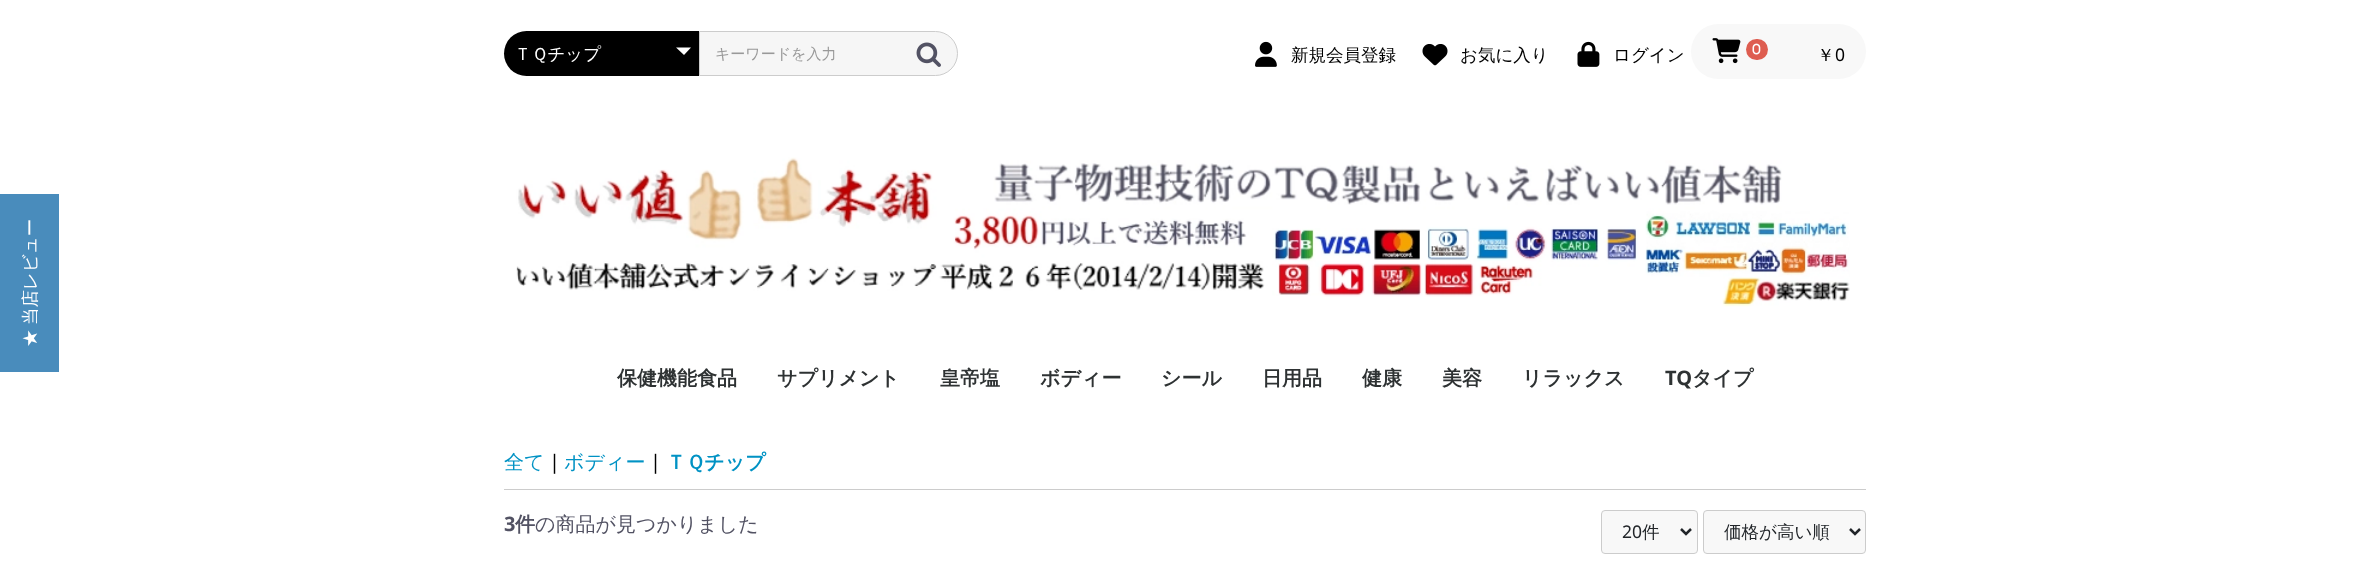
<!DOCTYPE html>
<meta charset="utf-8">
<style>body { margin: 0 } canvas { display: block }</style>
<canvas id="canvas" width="2369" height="566"></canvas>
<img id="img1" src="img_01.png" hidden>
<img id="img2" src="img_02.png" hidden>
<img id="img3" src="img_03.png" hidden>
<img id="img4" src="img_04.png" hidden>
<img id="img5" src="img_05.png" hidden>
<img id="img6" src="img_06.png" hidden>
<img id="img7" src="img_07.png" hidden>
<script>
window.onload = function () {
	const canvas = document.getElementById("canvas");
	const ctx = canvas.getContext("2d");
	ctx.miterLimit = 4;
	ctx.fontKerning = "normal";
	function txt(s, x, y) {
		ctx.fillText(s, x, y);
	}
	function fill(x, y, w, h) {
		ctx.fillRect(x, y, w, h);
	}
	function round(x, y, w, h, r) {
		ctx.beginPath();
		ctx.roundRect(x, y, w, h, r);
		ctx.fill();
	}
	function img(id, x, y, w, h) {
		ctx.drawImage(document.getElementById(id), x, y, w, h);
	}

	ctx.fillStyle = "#FFFFFF";
	fill(0, 0, 2369, 566);
	ctx.fillStyle = "#498CBC";
	fill(0, 194, 59, 178);
	ctx.fillStyle = "#000000";
	ctx.beginPath();
	ctx.roundRect(504, 31, 195, 45, [22.5, 0, 0, 22.5]);
	ctx.fill();
	ctx.fillStyle = "#FFFFFF";
	ctx.beginPath();
	ctx.moveTo(676, 47.5);
	ctx.lineTo(691, 47.5);
	ctx.lineTo(684, 55);
	ctx.closePath();
	ctx.fill();
	ctx.fillStyle = "#F6F6F6";
	ctx.beginPath();
	ctx.roundRect(699.5, 31.5, 258, 44, [0, 22, 22, 0]);
	ctx.fill();
	ctx.strokeStyle = "#CCCCCC";
	ctx.stroke();
	img("img1", 916, 42, 25, 25);
	img("img2", 1255, 41, 22, 26);
	img("img3", 1422, 44, 26, 22);
	img("img4", 1577, 41, 23, 26);
	ctx.fillStyle = "#F8F8F8";
	round(1691, 24, 175, 55, 27.5);
	img("img5", 1712, 38, 29, 26);
	ctx.fillStyle = "#DE5D50";
	round(1746, 39, 22, 21, 10.5);
	img("img6", 1752, 43, 9, 12);
	img("img7", 516, 157, 1334, 150);
	ctx.fillStyle = "#CCCCCC";
	fill(504, 489, 1362, 1);
	ctx.fillStyle = "#F8F8F8";
	ctx.beginPath();
	ctx.roundRect(1601.5, 510.5, 96, 43, 3.5);
	ctx.fill();
	ctx.stroke();
	ctx.beginPath();
	ctx.moveTo(1681, 529);
	ctx.lineTo(1686, 534);
	ctx.lineTo(1691, 529);
	ctx.strokeStyle = "#212529";
	ctx.lineWidth = 2.5;
	ctx.stroke();
	ctx.beginPath();
	ctx.roundRect(1703.5, 510.5, 162, 43, 3.5);
	ctx.fill();
	ctx.strokeStyle = "#CCCCCC";
	ctx.lineWidth = 1;
	ctx.stroke();
	ctx.beginPath();
	ctx.moveTo(1850, 529);
	ctx.lineTo(1855, 534);
	ctx.lineTo(1860, 529);
	ctx.strokeStyle = "#212529";
	ctx.lineWidth = 2.5;
	ctx.stroke();
	ctx.font = "500 17.5px WenQuanYi Zen Hei";
	ctx.fillStyle = "#FFFFFF";
	ctx.save();
	ctx.translate(36, 325);
	ctx.rotate(-90 * Math.PI / 180);
	ctx.fillText("当店レビュー", 0, 0);
	ctx.restore();
	ctx.save();
	ctx.translate(36, 347);
	ctx.rotate(-90 * Math.PI / 180);
	ctx.fillText("★", 0, 0);
	ctx.restore();
	txt("ＴＱチップ", 514, 60);
	ctx.font = "500 15px WenQuanYi Zen Hei";
	ctx.fillStyle = "#999999";
	txt("キーワードを入力", 715, 59);
	ctx.font = "500 17.5px WenQuanYi Zen Hei";
	ctx.fillStyle = "#000000";
	txt("新規会員登録", 1291, 61);
	txt("お気に入り", 1460, 61);
	txt("ログイン", 1613, 61);
	txt("￥", 1817, 61);
	ctx.font = "17.5px Noto Sans";
	txt("0", 1835, 61);
	ctx.font = "bold 20px WenQuanYi Zen Hei";
	ctx.fillStyle = "#2E3233";
	txt("保健機能食品", 617, 385);
	txt("サプリメント", 777, 385);
	txt("皇帝塩", 940, 385);
	txt("ボディー", 1040, 385);
	txt("シール", 1161, 385);
	txt("日用品", 1262, 385);
	txt("健康", 1362, 385);
	txt("美容", 1442, 385);
	txt("リラックス", 1522, 385);
	ctx.font = "bold 20px Noto Sans";
	txt("TQ", 1665, 385);
	ctx.font = "bold 20px WenQuanYi Zen Hei";
	txt("タイプ", 1692, 385);
	ctx.font = "500 20px WenQuanYi Zen Hei";
	ctx.fillStyle = "#0092C4";
	txt("全て", 504, 469);
	ctx.font = "20px Noto Sans";
	ctx.fillStyle = "#000000";
	txt("|", 549, 469);
	ctx.font = "500 20px WenQuanYi Zen Hei";
	ctx.fillStyle = "#0092C4";
	txt("ボディー", 564, 469);
	ctx.font = "20px Noto Sans";
	ctx.fillStyle = "#000000";
	txt("|", 650, 469);
	ctx.font = "bold 20px WenQuanYi Zen Hei";
	ctx.fillStyle = "#0092C4";
	txt("ＴＱチップ", 666, 469);
	ctx.font = "bold 20px Noto Sans";
	ctx.fillStyle = "#525263";
	txt("3", 504, 531);
	ctx.font = "bold 20px WenQuanYi Zen Hei";
	txt("件", 515, 531);
	ctx.font = "500 20px WenQuanYi Zen Hei";
	txt("の商品が見つかりました", 535, 531);
	ctx.font = "17.5px Noto Sans";
	ctx.fillStyle = "#212529";
	txt("20", 1622, 538);
	ctx.font = "500 17.5px WenQuanYi Zen Hei";
	txt("件", 1642, 538);
	txt("価格が高い順", 1724, 538);
};
</script>
